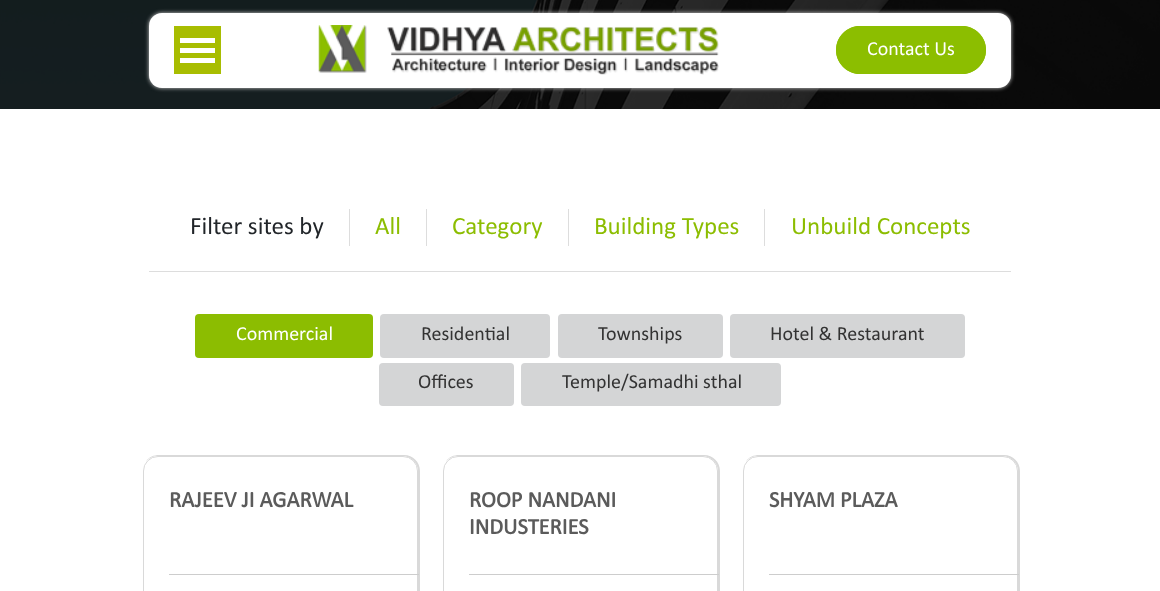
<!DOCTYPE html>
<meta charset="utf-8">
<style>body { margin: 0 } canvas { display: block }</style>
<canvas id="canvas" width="1160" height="591"></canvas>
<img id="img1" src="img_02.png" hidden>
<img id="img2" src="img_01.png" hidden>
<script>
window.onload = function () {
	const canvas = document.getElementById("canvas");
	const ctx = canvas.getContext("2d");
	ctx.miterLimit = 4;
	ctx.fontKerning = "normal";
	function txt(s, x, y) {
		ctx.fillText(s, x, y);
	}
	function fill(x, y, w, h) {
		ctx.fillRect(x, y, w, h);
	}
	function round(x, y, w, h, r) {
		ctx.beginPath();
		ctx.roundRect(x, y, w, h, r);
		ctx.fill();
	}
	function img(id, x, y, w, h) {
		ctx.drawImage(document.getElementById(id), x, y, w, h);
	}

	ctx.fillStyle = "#FFFFFF";
	fill(0, 0, 1160, 591);
	img("img1", 0, 0, 1160, 109);
	ctx.fillStyle = "#CCCCCC";
	ctx.filter = "blur(2px)";
	ctx.beginPath();
	ctx.roundRect(149, 13, 862, 75, 13);
	ctx.fill();
	ctx.filter = "none";
	ctx.fillStyle = "#FFFFFF";
	round(149, 13, 862, 75, 13);
	ctx.fillStyle = "#A8BD01";
	fill(174, 26, 47, 48);
	ctx.fillStyle = "#FFFFFF";
	fill(180, 38, 35, 5);
	fill(180, 48, 35, 5);
	fill(180, 58, 35, 5);
	img("img2", 318, 25, 401, 50);
	ctx.fillStyle = "#8CBE00";
	ctx.beginPath();
	ctx.moveTo(965, 26);
	ctx.lineTo(857, 26);
	ctx.bezierCurveTo(845, 28, 836, 38, 836, 50);
	ctx.bezierCurveTo(836, 62, 845, 72, 857, 74);
	ctx.lineTo(965, 74);
	ctx.bezierCurveTo(977, 72, 986, 62, 986, 50);
	ctx.bezierCurveTo(986, 38, 977, 28, 965, 26);
	ctx.closePath();
	ctx.fill();
	ctx.beginPath();
	ctx.roundRect(837.5, 27.5, 147, 45, 22.5);
	ctx.strokeStyle = "#8CBE00";
	ctx.lineWidth = 3;
	ctx.stroke();
	ctx.fillStyle = "#DDDDDD";
	fill(149, 271, 862, 1);
	fill(349, 209, 1, 37);
	fill(426, 209, 1, 37);
	fill(568, 209, 1, 37);
	fill(764, 209, 1, 37);
	ctx.fillStyle = "#8CBD01";
	round(195, 314, 178, 44, 4);
	ctx.fillStyle = "#D4D5D6";
	round(380, 314, 170, 44, 4);
	round(558, 314, 165, 44, 4);
	round(730, 314, 235, 44, 4);
	round(379, 363, 135, 43, 4);
	round(521, 363, 260, 43, 4);
	ctx.fillStyle = "#D9D9D9";
	ctx.beginPath();
	ctx.moveTo(159, 455);
	ctx.bezierCurveTo(154, 455, 149, 457, 146, 461);
	ctx.bezierCurveTo(149, 458, 153, 456, 158, 456);
	ctx.lineTo(402, 456);
	ctx.bezierCurveTo(411, 456, 418, 463, 418, 471);
	ctx.lineTo(418, 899);
	ctx.bezierCurveTo(418, 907, 411, 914, 402, 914);
	ctx.lineTo(158, 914);
	ctx.bezierCurveTo(153, 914, 149, 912, 146, 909);
	ctx.bezierCurveTo(149, 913, 154, 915, 159, 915);
	ctx.lineTo(404, 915);
	ctx.bezierCurveTo(413, 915, 420, 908, 420, 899);
	ctx.lineTo(420, 471);
	ctx.bezierCurveTo(420, 462, 413, 455, 404, 455);
	ctx.closePath();
	ctx.fill();
	ctx.fillStyle = "#FFFFFF";
	ctx.beginPath();
	ctx.roundRect(143.5, 456.5, 274, 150, 14.5);
	ctx.fill();
	ctx.strokeStyle = "#D9D9D9";
	ctx.lineWidth = 1;
	ctx.stroke();
	ctx.fillStyle = "#CDCDCD";
	fill(169, 574, 250, 1);
	ctx.fillStyle = "#D9D9D9";
	ctx.beginPath();
	ctx.moveTo(459, 455);
	ctx.bezierCurveTo(454, 455, 449, 457, 446, 461);
	ctx.bezierCurveTo(449, 458, 453, 456, 458, 456);
	ctx.lineTo(702, 456);
	ctx.bezierCurveTo(711, 456, 718, 463, 718, 471);
	ctx.lineTo(718, 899);
	ctx.bezierCurveTo(718, 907, 711, 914, 702, 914);
	ctx.lineTo(458, 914);
	ctx.bezierCurveTo(453, 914, 449, 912, 446, 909);
	ctx.bezierCurveTo(449, 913, 454, 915, 459, 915);
	ctx.lineTo(704, 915);
	ctx.bezierCurveTo(713, 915, 720, 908, 720, 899);
	ctx.lineTo(720, 471);
	ctx.bezierCurveTo(720, 462, 713, 455, 704, 455);
	ctx.closePath();
	ctx.fill();
	ctx.fillStyle = "#FFFFFF";
	ctx.beginPath();
	ctx.roundRect(443.5, 456.5, 274, 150, 14.5);
	ctx.fill();
	ctx.stroke();
	ctx.fillStyle = "#CDCDCD";
	fill(469, 574, 250, 1);
	ctx.fillStyle = "#D9D9D9";
	ctx.beginPath();
	ctx.moveTo(759, 455);
	ctx.bezierCurveTo(754, 455, 749, 457, 746, 461);
	ctx.bezierCurveTo(749, 458, 753, 456, 758, 456);
	ctx.lineTo(1002, 456);
	ctx.bezierCurveTo(1011, 456, 1018, 463, 1018, 471);
	ctx.lineTo(1018, 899);
	ctx.bezierCurveTo(1018, 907, 1011, 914, 1002, 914);
	ctx.lineTo(758, 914);
	ctx.bezierCurveTo(753, 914, 749, 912, 746, 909);
	ctx.bezierCurveTo(749, 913, 754, 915, 759, 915);
	ctx.lineTo(1004, 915);
	ctx.bezierCurveTo(1013, 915, 1020, 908, 1020, 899);
	ctx.lineTo(1020, 471);
	ctx.bezierCurveTo(1020, 462, 1013, 455, 1004, 455);
	ctx.closePath();
	ctx.fill();
	ctx.fillStyle = "#FFFFFF";
	ctx.beginPath();
	ctx.roundRect(743.5, 456.5, 274, 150, 14.5);
	ctx.fill();
	ctx.stroke();
	ctx.fillStyle = "#CDCDCD";
	fill(769, 574, 250, 1);
	ctx.font = "20px Calibri";
	ctx.fillStyle = "#FFFFFF";
	txt("Contact Us", 867, 55);
	ctx.font = "25px Calibri";
	ctx.fillStyle = "#212529";
	txt("Filter sites by", 190, 234);
	ctx.fillStyle = "#8CBD01";
	txt("All", 375, 234);
	txt("Category", 452, 234);
	txt("Building Types", 594, 234);
	txt("Unbuild Concepts", 791, 234);
	ctx.font = "20px Calibri";
	ctx.fillStyle = "#FFFFFF";
	txt("Commercial", 236, 340);
	ctx.fillStyle = "#333333";
	txt("Residential", 421, 340);
	txt("Townships", 598, 340);
	txt("Hotel & Restaurant", 770, 340);
	txt("Offices", 418, 388);
	txt("Temple/Samadhi sthal", 562, 388);
	ctx.font = "bold 22.5px Calibri";
	ctx.fillStyle = "#5B5B5B";
	txt("RAJEEV JI AGARWAL", 169, 507);
	txt("ROOP NANDANI", 469, 507);
	txt("INDUSTERIES", 469, 534);
	txt("SHYAM PLAZA", 769, 507);
};
</script>
